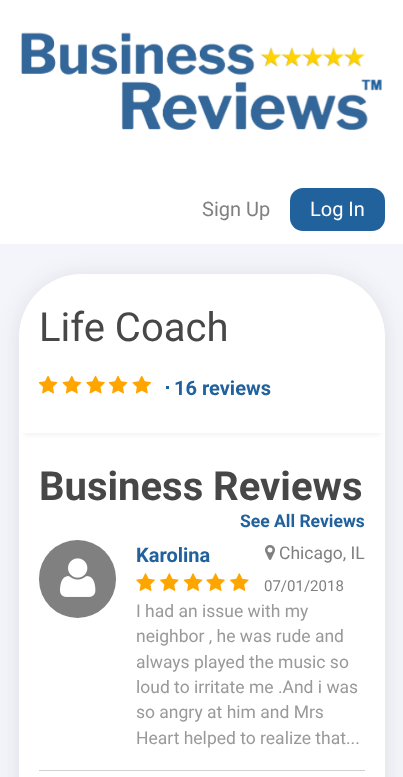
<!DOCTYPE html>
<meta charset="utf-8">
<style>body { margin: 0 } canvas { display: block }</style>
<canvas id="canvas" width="403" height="777"></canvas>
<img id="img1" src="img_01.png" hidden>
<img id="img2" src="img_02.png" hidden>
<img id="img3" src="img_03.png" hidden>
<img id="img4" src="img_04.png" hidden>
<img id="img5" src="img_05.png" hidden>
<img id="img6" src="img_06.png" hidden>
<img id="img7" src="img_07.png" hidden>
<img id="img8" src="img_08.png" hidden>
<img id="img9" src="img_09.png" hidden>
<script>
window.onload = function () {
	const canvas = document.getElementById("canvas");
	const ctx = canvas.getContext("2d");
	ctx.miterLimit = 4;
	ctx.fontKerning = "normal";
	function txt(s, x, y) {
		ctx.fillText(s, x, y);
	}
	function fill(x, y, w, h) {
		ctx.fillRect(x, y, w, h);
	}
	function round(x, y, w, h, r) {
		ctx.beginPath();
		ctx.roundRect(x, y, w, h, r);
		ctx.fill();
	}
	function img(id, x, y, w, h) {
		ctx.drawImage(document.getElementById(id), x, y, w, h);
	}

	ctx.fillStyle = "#F4F5FA";
	fill(0, 0, 403, 777);
	ctx.fillStyle = "rgba(49, 53, 72, 0.1)";
	ctx.filter = "blur(11px)";
	ctx.beginPath();
	ctx.roundRect(18, 275, 368, 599, 64);
	ctx.fill();
	ctx.filter = "none";
	ctx.fillStyle = "#FFFFFF";
	fill(0, 0, 403, 244);
	img("img1", 21, 32, 361, 98);
	ctx.fillStyle = "#21629D";
	round(290, 188, 95, 43, 13);
	ctx.fillStyle = "#FFFFFF";
	ctx.beginPath();
	ctx.moveTo(82, 274);
	ctx.lineTo(322, 274);
	ctx.bezierCurveTo(357, 274, 385, 302, 385, 337);
	ctx.lineTo(385, 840);
	ctx.lineTo(19, 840);
	ctx.lineTo(19, 337);
	ctx.bezierCurveTo(19, 302, 47, 274, 82, 274);
	ctx.closePath();
	ctx.fill();
	ctx.save();
	ctx.beginPath();
	ctx.moveTo(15, 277);
	ctx.lineTo(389, 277);
	ctx.lineTo(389, 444);
	ctx.lineTo(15, 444);
	ctx.closePath();
	ctx.moveTo(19, 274);
	ctx.lineTo(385, 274);
	ctx.lineTo(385, 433);
	ctx.lineTo(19, 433);
	ctx.closePath();
	ctx.clip("evenodd");
	ctx.fillStyle = "#F1F1F1";
	ctx.filter = "blur(2.5px)";
	ctx.beginPath();
	ctx.rect(24, 286, 356, 149);
	ctx.fill();
	ctx.filter = "none";
	ctx.restore();
	img("img2", 38, 375, 20, 19);
	img("img3", 62, 375, 19, 19);
	img("img4", 86, 375, 19, 19);
	img("img2", 108, 375, 20, 19);
	img("img3", 132, 375, 19, 19);
	ctx.fillStyle = "#21629D";
	fill(166, 386, 3, 3);
	ctx.fillStyle = "#D1D1D1";
	fill(39, 770, 326, 1);
	ctx.fillStyle = "#808080";
	round(39, 540, 77, 78, 38.5);
	img("img5", 60, 558, 36, 39);
	img("img6", 265, 545, 10, 15);
	img("img7", 136, 573, 19, 18);
	img("img8", 160, 573, 19, 18);
	img("img9", 183, 573, 20, 18);
	img("img7", 206, 573, 19, 18);
	img("img8", 230, 573, 19, 18);
	ctx.font = "20px Roboto";
	txt("Sign Up", 202, 216);
	ctx.fillStyle = "#FFFFFF";
	txt("Log In", 310, 216);
	ctx.font = "40px Roboto";
	ctx.fillStyle = "#474747";
	txt("Life Coach", 39, 341);
	ctx.font = "bold 20px Roboto";
	ctx.fillStyle = "#21629D";
	txt("16 reviews", 174, 395);
	ctx.font = "bold 40px Roboto";
	ctx.fillStyle = "#474747";
	txt("Business Reviews", 39, 500);
	ctx.font = "bold 17.5px Roboto";
	ctx.fillStyle = "#21629D";
	txt("See All Reviews", 240, 527);
	ctx.font = "bold 20px Roboto";
	txt("Karolina", 136, 562);
	ctx.font = "17.5px Roboto";
	ctx.fillStyle = "#808080";
	txt("Chicago, IL", 279, 559);
	ctx.font = "15px Roboto";
	txt("07/01/2018", 264, 591);
	ctx.font = "17.5px Roboto";
	ctx.fillStyle = "#999999";
	txt("I had an issue with my", 136, 617);
	txt("neighbor , he was rude and", 136, 642);
	txt("always played the music so", 136, 668);
	txt("loud to irritate me .And i was", 136, 693);
	txt("so angry at him and Mrs", 136, 718);
	txt("Heart helped to realize that...", 136, 744);
};
</script>
